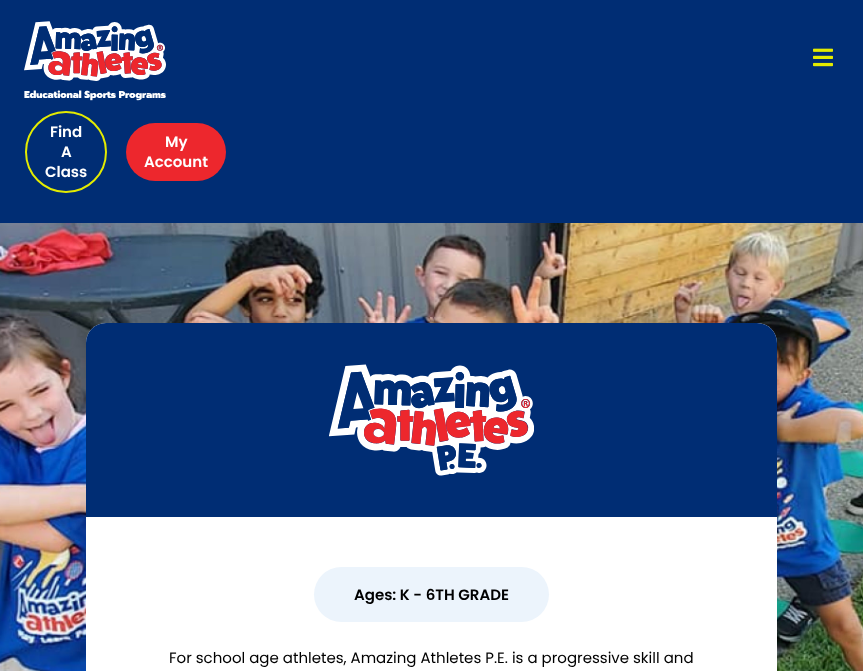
<!DOCTYPE html>
<meta charset="utf-8">
<style>body { margin: 0 } canvas { display: block }</style>
<canvas id="canvas" width="863" height="671"></canvas>
<img id="img1" src="img_01.png" hidden>
<img id="img2" src="img_02.png" hidden>
<img id="img3" src="img_03.png" hidden>
<img id="img4" src="img_04.png" hidden>
<script>
window.onload = function () {
	const canvas = document.getElementById("canvas");
	const ctx = canvas.getContext("2d");
	ctx.miterLimit = 4;
	ctx.fontKerning = "normal";
	function txt(s, x, y) {
		ctx.fillText(s, x, y);
	}
	function fill(x, y, w, h) {
		ctx.fillRect(x, y, w, h);
	}
	function round(x, y, w, h, r) {
		ctx.beginPath();
		ctx.roundRect(x, y, w, h, r);
		ctx.fill();
	}
	function img(id, x, y, w, h) {
		ctx.drawImage(document.getElementById(id), x, y, w, h);
	}

	ctx.fillStyle = "#FFFFFF";
	fill(0, 0, 863, 671);
	ctx.fillStyle = "#002D74";
	fill(0, 0, 863, 223);
	img("img1", 24, 21, 142, 80);
	img("img2", 813, 48, 20, 19);
	ctx.beginPath();
	ctx.arc(66, 152, 40, 0, Math.PI * 2);
	ctx.strokeStyle = "#E3EB00";
	ctx.lineWidth = 2;
	ctx.stroke();
	ctx.fillStyle = "#ED272D";
	round(126, 123, 100, 58, 29);
	img("img3", 0, 223, 863, 448);
	ctx.fillStyle = "#FFFFFF";
	round(86, 323, 691, 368, 20);
	ctx.fillStyle = "#002D74";
	ctx.beginPath();
	ctx.roundRect(86, 323, 691, 194, [20, 20, 0, 0]);
	ctx.fill();
	img("img4", 329, 364, 205, 112);
	ctx.fillStyle = "#ECF4FC";
	round(314, 567, 235, 55, 27.5);
	ctx.font = "600 15px Poppins";
	ctx.fillStyle = "#FFFFFF";
	txt("Find", 50, 137);
	txt("A", 61, 157);
	txt("Class", 45, 177);
	txt("My", 165, 147);
	txt("Account", 144, 167);
	ctx.fillStyle = "#000000";
	txt("Ages: K - 6TH GRADE", 354, 600);
	ctx.font = "15px Poppins";
	txt("For school age athletes, Amazing Athletes P.E. is a progressive skill and", 169, 663);
};
</script>
